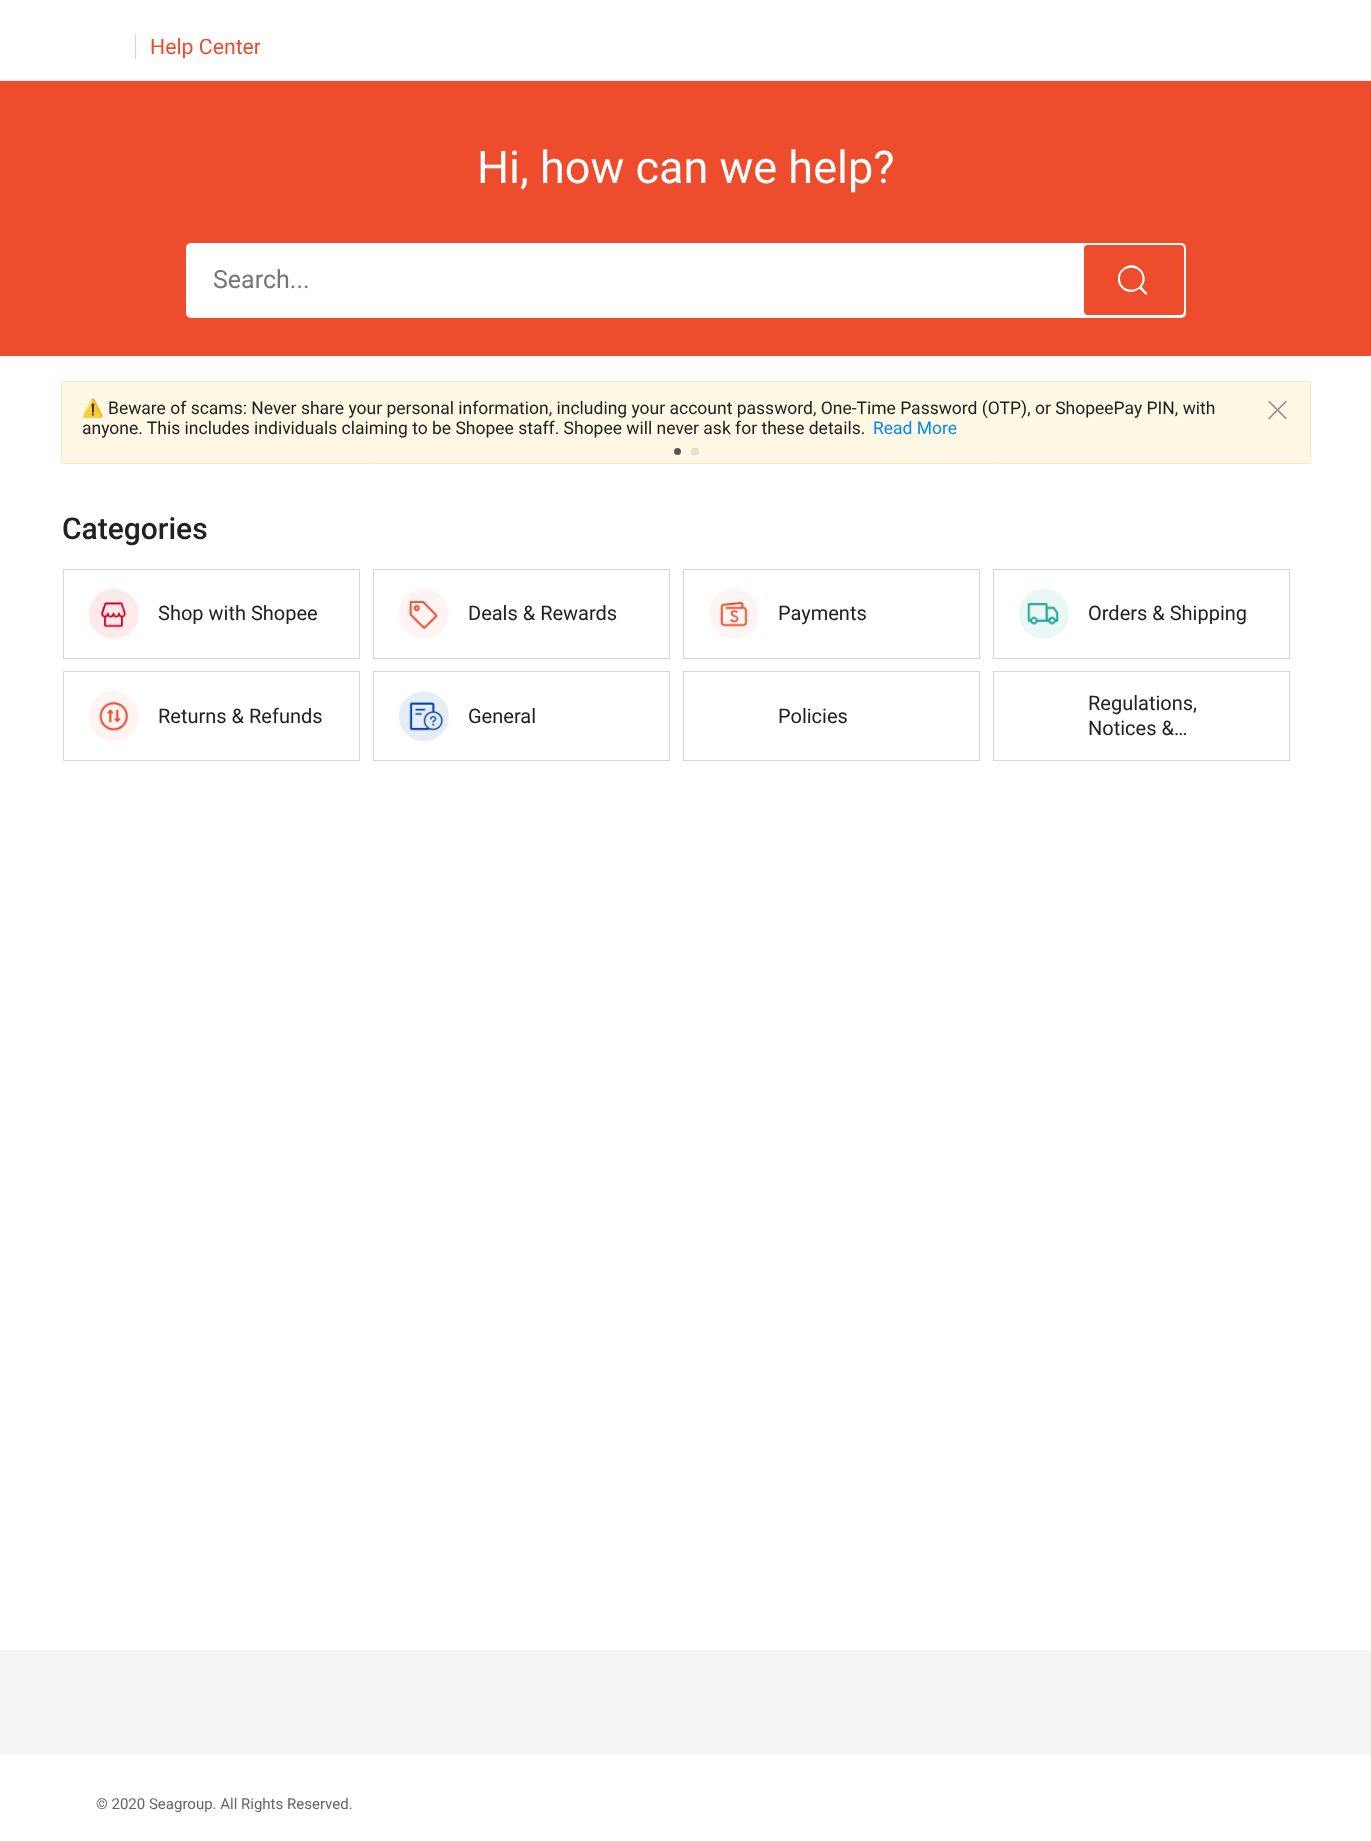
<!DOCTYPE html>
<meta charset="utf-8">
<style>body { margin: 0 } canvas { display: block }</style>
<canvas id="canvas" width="1371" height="1841"></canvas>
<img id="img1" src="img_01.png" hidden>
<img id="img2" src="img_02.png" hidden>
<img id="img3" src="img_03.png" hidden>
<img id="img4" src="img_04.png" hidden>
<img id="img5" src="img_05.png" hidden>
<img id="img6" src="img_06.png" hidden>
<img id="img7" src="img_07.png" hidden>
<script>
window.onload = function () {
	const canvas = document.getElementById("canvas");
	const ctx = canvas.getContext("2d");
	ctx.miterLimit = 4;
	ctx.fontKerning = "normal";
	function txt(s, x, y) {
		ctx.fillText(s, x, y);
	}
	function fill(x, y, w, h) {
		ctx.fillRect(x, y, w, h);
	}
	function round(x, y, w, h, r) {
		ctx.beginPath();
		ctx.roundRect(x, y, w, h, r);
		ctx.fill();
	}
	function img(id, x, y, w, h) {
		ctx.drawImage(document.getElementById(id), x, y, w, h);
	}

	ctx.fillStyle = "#FFFFFF";
	fill(0, 0, 1371, 1841);
	ctx.fillStyle = "#EEEEEE";
	fill(0, 80, 1371, 1);
	ctx.fillStyle = "#FACAC0";
	fill(135, 34, 1, 25);
	ctx.fillStyle = "#EE4D2D";
	fill(0, 81, 1371, 275);
	ctx.fillStyle = "#FFFFFF";
	round(186, 243, 1000, 75, 5);
	ctx.fillStyle = "#EE4D2D";
	round(1084, 245, 100, 70, 4);
	ctx.save();
	ctx.beginPath();
	ctx.rect(1118, 265, 31, 31);
	ctx.clip();
	ctx.fillStyle = "#FFFFFF";
	ctx.beginPath();
	ctx.moveTo(1142.5, 278.5);
	ctx.bezierCurveTo(1142.5, 293.5, 1120, 293.5, 1120, 278.5);
	ctx.bezierCurveTo(1120, 264, 1142.5, 264, 1142.5, 278.5);
	ctx.closePath();
	ctx.moveTo(1139.5, 288.5);
	ctx.bezierCurveTo(1127, 299.5, 1109.5, 281.5, 1122, 269.5);
	ctx.bezierCurveTo(1134, 257, 1152, 274.5, 1141.5, 287);
	ctx.lineTo(1147.5, 293.5);
	ctx.lineTo(1146, 295);
	ctx.closePath();
	ctx.fill("evenodd");
	ctx.restore();
	ctx.fillStyle = "#FFF8E4";
	ctx.beginPath();
	ctx.roundRect(61.5, 381.5, 1249, 82, 2);
	ctx.fill();
	ctx.strokeStyle = "#FFE8B4";
	ctx.stroke();
	img("img1", 1268, 400, 19, 20);
	fill(1309, 462, 1, 1);
	ctx.fillStyle = "#595750";
	ctx.beginPath();
	ctx.arc(677.5, 451.5, 3.5, 0, Math.PI * 2);
	ctx.fill();
	ctx.fillStyle = "#E8E2CF";
	round(691, 448, 8, 7, 3.5);
	ctx.beginPath();
	ctx.roundRect(691.3, 448.3, 7.4, 6.4, 3.2);
	ctx.strokeStyle = "rgba(0, 0, 0, 0.09)";
	ctx.lineWidth = 0.6;
	ctx.stroke();
	ctx.strokeStyle = "#D6D6D6";
	ctx.lineWidth = 1;
	ctx.strokeRect(63.5, 569.5, 296, 89);
	img("img2", 88, 588, 51, 51);
	ctx.strokeRect(373.5, 569.5, 296, 89);
	img("img3", 399, 589, 50, 50);
	ctx.strokeRect(683.5, 569.5, 296, 89);
	img("img4", 709, 589, 50, 50);
	ctx.strokeRect(993.5, 569.5, 296, 89);
	img("img5", 1018, 588, 51, 51);
	ctx.strokeRect(63.5, 671.5, 296, 89);
	img("img6", 89, 691, 50, 50);
	ctx.strokeRect(373.5, 671.5, 296, 89);
	img("img7", 398, 691, 51, 51);
	ctx.strokeRect(683.5, 671.5, 296, 89);
	ctx.strokeRect(993.5, 671.5, 296, 89);
	ctx.fillStyle = "#F5F5F5";
	fill(0, 1650, 1371, 105);
	ctx.save();
	ctx.beginPath();
	ctx.rect(136, 34, 124, 25);
	ctx.clip();
	ctx.font = "21.25px Roboto";
	ctx.fillStyle = "#EE4D2D";
	txt("Help Center", 150, 54);
	ctx.restore();
	ctx.font = "45px Roboto";
	ctx.fillStyle = "#FFFFFF";
	txt("Hi, how can we help?", 477, 183);
	ctx.font = "25px Roboto";
	ctx.fillStyle = "#757575";
	txt("Search...", 213, 288);
	ctx.save();
	ctx.beginPath();
	ctx.rect(83, 398, 1162, 40);
	ctx.clip();
	ctx.font = "17.5px Noto Color Emoji";
	ctx.fillStyle = "#212121";
	txt("⚠️", 82, 414);
	ctx.restore();
	ctx.font = "17.5px Roboto";
	ctx.fillStyle = "#212121";
	txt("Beware of scams: Never share your personal information, including your account password, One-Time Password (OTP), or ShopeePay PIN, with", 108, 414);
	txt("anyone. This includes individuals claiming to be Shopee staff. Shopee will never ask for these details.", 82, 434);
	ctx.fillStyle = "#0088FF";
	txt("Read More", 873, 434);
	ctx.font = "500 30px Roboto";
	ctx.fillStyle = "#212121";
	txt("Categories", 62, 539);
	ctx.font = "20px Roboto";
	txt("Shop with Shopee", 158, 620);
	txt("Deals & Rewards", 468, 620);
	txt("Payments", 778, 620);
	txt("Orders & Shipping", 1088, 620);
	txt("Returns & Refunds", 158, 723);
	txt("General", 468, 723);
	txt("Policies", 778, 723);
	txt("Regulations,", 1088, 710);
	txt("Notices &…", 1088, 735);
	ctx.font = "15px Roboto";
	ctx.fillStyle = "#666666";
	txt("© 2020 Seagroup. All Rights Reserved.", 96, 1809);
};
</script>
